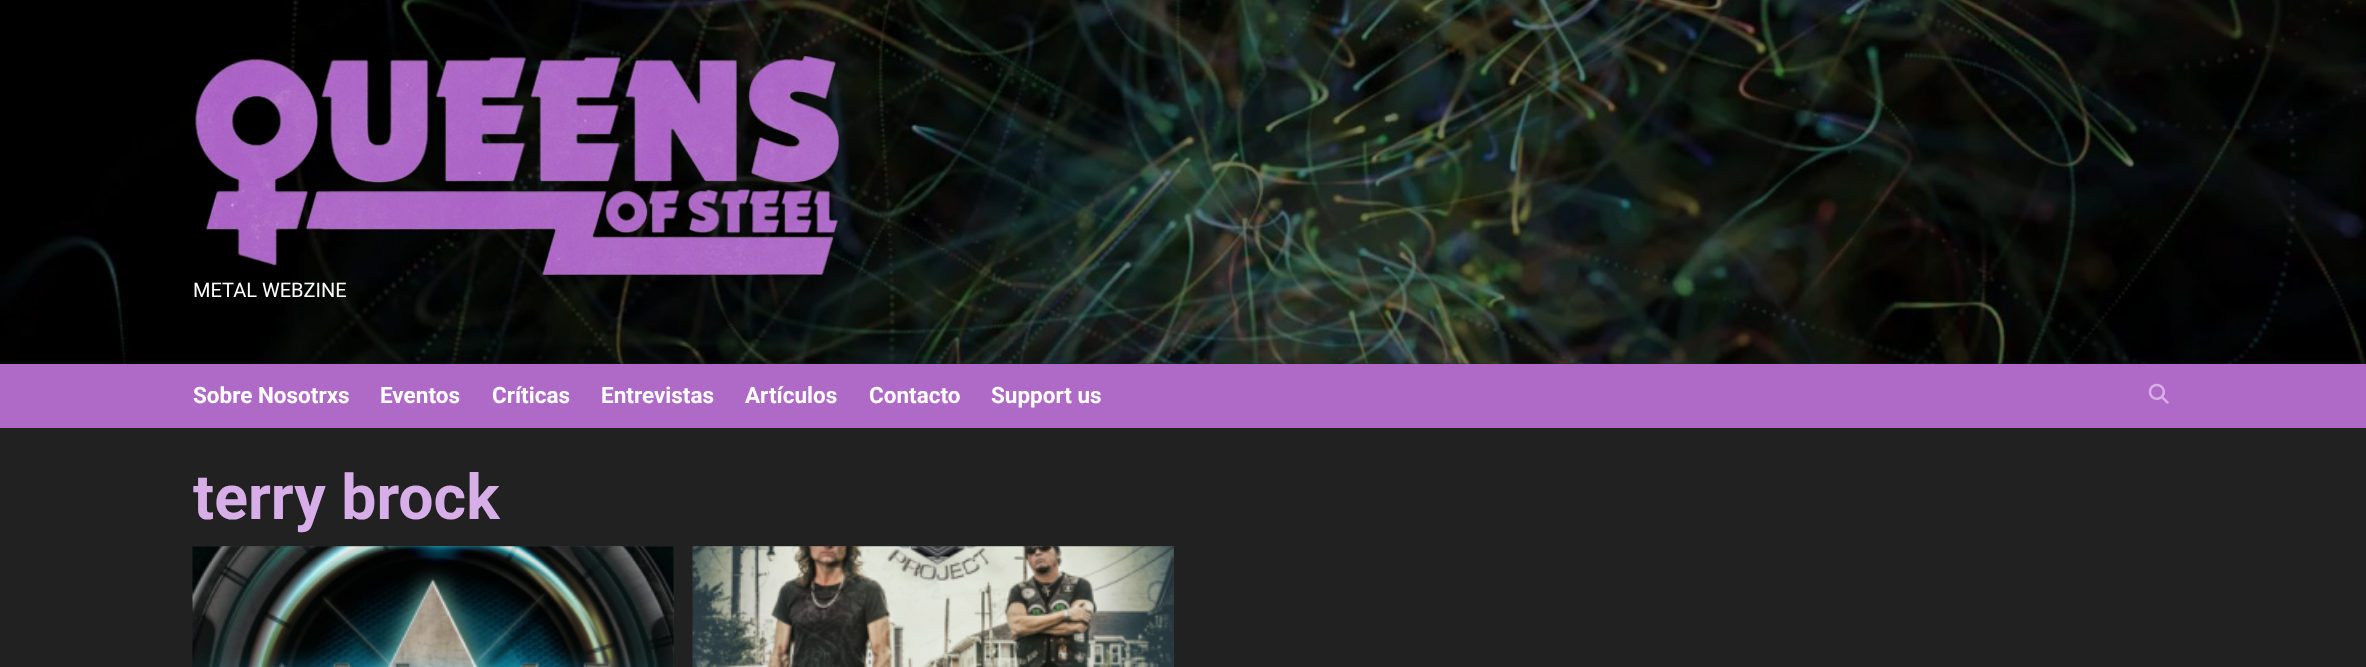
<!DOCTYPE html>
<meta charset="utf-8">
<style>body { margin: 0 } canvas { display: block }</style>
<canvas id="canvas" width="2366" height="667"></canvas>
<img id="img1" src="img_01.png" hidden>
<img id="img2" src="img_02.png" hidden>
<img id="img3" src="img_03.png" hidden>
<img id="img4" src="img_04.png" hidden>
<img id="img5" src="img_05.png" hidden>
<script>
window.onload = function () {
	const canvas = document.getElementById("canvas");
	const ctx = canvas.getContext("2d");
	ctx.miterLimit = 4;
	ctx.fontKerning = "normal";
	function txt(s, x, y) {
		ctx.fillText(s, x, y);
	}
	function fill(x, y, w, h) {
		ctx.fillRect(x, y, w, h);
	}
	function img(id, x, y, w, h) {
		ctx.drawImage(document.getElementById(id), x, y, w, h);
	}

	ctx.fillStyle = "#212121";
	fill(0, 0, 2366, 667);
	img("img1", 0, 0, 2366, 364);
	img("img2", 194, 56, 646, 219);
	ctx.fillStyle = "#AF6AC8";
	fill(0, 364, 2366, 64);
	img("img3", 2148, 383, 21, 21);
	ctx.fillStyle = "#3D3D3D";
	fill(193, 546, 481, 121);
	img("img4", 192, 546, 482, 121);
	fill(693, 546, 481, 121);
	img("img5", 692, 546, 482, 121);
	ctx.font = "20px Roboto";
	ctx.fillStyle = "#FFFFFF";
	txt("METAL WEBZINE", 193, 297);
	ctx.font = "bold 22.5px Roboto";
	txt("Sobre Nosotrxs", 193, 403);
	txt("Eventos", 380, 403);
	txt("Críticas", 492, 403);
	txt("Entrevistas", 601, 403);
	txt("Artículos", 745, 403);
	txt("Contacto", 869, 403);
	txt("Support us", 991, 403);
	ctx.font = "bold 62.5px Roboto";
	ctx.fillStyle = "#D8AEE8";
	txt("terry brock", 193, 519);
};
</script>
